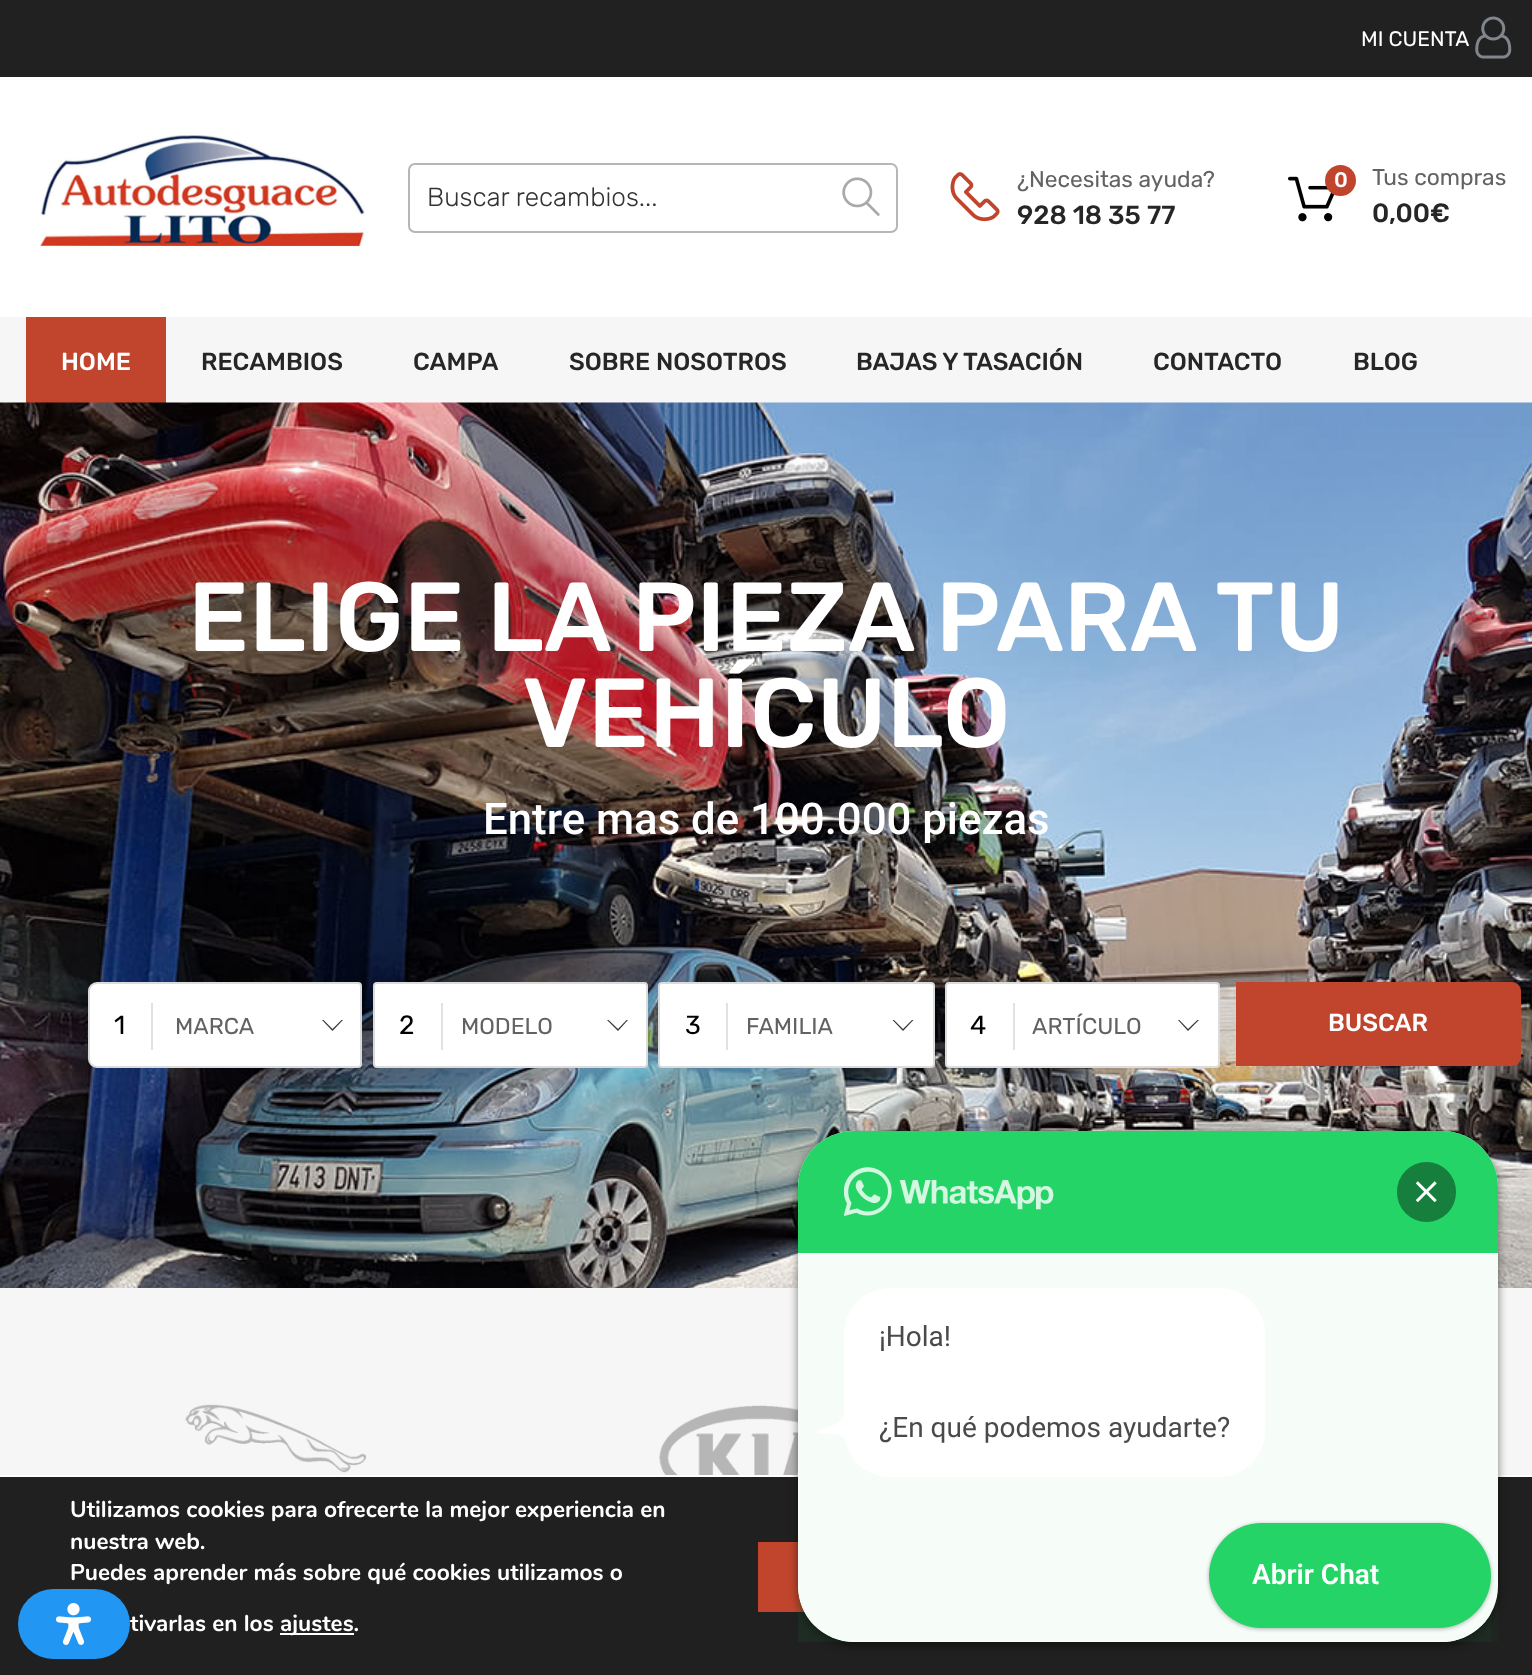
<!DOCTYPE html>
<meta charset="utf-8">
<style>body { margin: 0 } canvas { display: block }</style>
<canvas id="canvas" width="1532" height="1675"></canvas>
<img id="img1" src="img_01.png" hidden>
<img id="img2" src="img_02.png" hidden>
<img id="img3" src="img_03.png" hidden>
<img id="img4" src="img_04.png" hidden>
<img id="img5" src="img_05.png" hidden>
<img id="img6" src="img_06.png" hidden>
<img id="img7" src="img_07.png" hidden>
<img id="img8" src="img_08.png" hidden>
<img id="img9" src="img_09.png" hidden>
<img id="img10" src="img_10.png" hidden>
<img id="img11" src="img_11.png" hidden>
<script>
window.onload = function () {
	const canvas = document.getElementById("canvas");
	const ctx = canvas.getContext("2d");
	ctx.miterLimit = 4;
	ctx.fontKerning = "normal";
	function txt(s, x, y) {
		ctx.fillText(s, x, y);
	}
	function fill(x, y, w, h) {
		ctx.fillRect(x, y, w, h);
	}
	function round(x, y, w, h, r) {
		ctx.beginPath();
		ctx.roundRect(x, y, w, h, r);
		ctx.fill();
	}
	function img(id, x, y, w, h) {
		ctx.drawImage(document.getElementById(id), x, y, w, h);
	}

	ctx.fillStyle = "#F6F6F6";
	fill(0, 0, 1532, 1675);
	ctx.fillStyle = "#FFFFFF";
	fill(0, 77, 1532, 240);
	ctx.fillStyle = "#212121";
	fill(0, 0, 1532, 77);
	img("img1", 1475, 16, 37, 43);
	img("img2", 40, 135, 325, 114);
	ctx.beginPath();
	ctx.roundRect(409, 164, 488, 68, 6);
	ctx.strokeStyle = "#B6B6B6";
	ctx.lineWidth = 2;
	ctx.stroke();
	img("img3", 842, 177, 38, 39);
	img("img4", 950, 172, 50, 50);
	img("img5", 1288, 176, 47, 46);
	ctx.fillStyle = "#C1452D";
	ctx.beginPath();
	ctx.arc(1340.5, 180.5, 15.5, 0, Math.PI * 2);
	ctx.fill();
	fill(26, 317, 140, 86);
	img("img6", 0, 402, 1532, 886);
	ctx.fillStyle = "#FFFFFF";
	ctx.beginPath();
	ctx.roundRect(89, 983, 272, 84, [8, 3, 3, 8]);
	ctx.fill();
	ctx.strokeStyle = "#DBDBDB";
	ctx.stroke();
	ctx.fillStyle = "#E1E1E1";
	fill(151, 1003, 2, 47);
	ctx.fillStyle = "#373737";
	ctx.beginPath();
	ctx.moveTo(322, 1020);
	ctx.lineTo(343, 1020);
	ctx.lineTo(332.5, 1031);
	ctx.closePath();
	ctx.fill();
	ctx.fillStyle = "#FFFFFF";
	ctx.beginPath();
	ctx.moveTo(322, 1018.5);
	ctx.lineTo(343, 1018.5);
	ctx.lineTo(332.5, 1029);
	ctx.closePath();
	ctx.fill();
	ctx.beginPath();
	ctx.roundRect(374, 983, 273, 84, 3);
	ctx.fill();
	ctx.stroke();
	ctx.fillStyle = "#E1E1E1";
	fill(441, 1003, 2, 47);
	ctx.fillStyle = "#373737";
	ctx.beginPath();
	ctx.moveTo(607, 1020);
	ctx.lineTo(628, 1020);
	ctx.lineTo(618, 1031);
	ctx.closePath();
	ctx.fill();
	ctx.fillStyle = "#FFFFFF";
	ctx.beginPath();
	ctx.moveTo(607, 1018.5);
	ctx.lineTo(628, 1018.5);
	ctx.lineTo(618, 1029);
	ctx.closePath();
	ctx.fill();
	ctx.beginPath();
	ctx.roundRect(659, 983, 275, 84, 3);
	ctx.fill();
	ctx.stroke();
	ctx.fillStyle = "#E1E1E1";
	fill(726, 1003, 2, 47);
	ctx.fillStyle = "#373737";
	ctx.beginPath();
	ctx.moveTo(892.5, 1020);
	ctx.lineTo(913.5, 1020);
	ctx.lineTo(903, 1031);
	ctx.closePath();
	ctx.fill();
	ctx.fillStyle = "#FFFFFF";
	ctx.beginPath();
	ctx.moveTo(892.5, 1018.5);
	ctx.lineTo(913.5, 1018.5);
	ctx.lineTo(903, 1029);
	ctx.closePath();
	ctx.fill();
	ctx.beginPath();
	ctx.roundRect(946, 983, 273, 84, 3);
	ctx.fill();
	ctx.stroke();
	ctx.fillStyle = "#E1E1E1";
	fill(1013, 1003, 2, 47);
	ctx.fillStyle = "#373737";
	ctx.beginPath();
	ctx.moveTo(1178, 1020);
	ctx.lineTo(1199, 1020);
	ctx.lineTo(1188, 1031);
	ctx.closePath();
	ctx.fill();
	ctx.fillStyle = "#FFFFFF";
	ctx.beginPath();
	ctx.moveTo(1178, 1018.5);
	ctx.lineTo(1199, 1018.5);
	ctx.lineTo(1188, 1029);
	ctx.closePath();
	ctx.fill();
	ctx.fillStyle = "#C1452D";
	ctx.beginPath();
	ctx.roundRect(1236, 982, 285, 84, [0, 9, 9, 0]);
	ctx.fill();
	img("img7", 185, 1404, 182, 69);
	img("img8", 659, 1405, 139, 70);
	ctx.fillStyle = "#202020";
	fill(0, 1477, 1532, 198);
	ctx.fillStyle = "#FFFFFF";
	fill(0, 1475, 1532, 2);
	fill(280, 1633, 74, 2);
	ctx.fillStyle = "#C1452D";
	fill(758, 1542, 47, 70);
	ctx.fillStyle = "rgba(0, 0, 0, 0.5)";
	ctx.filter = "blur(5px)";
	ctx.beginPath();
	ctx.roundRect(798, 1134, 700, 511, 56);
	ctx.fill();
	ctx.filter = "none";
	ctx.fillStyle = "#FFFFFF";
	round(798, 1131, 700, 511, 56);
	ctx.fillStyle = "#25D466";
	ctx.beginPath();
	ctx.roundRect(798, 1131, 700, 122, [56, 56, 0, 0]);
	ctx.fill();
	ctx.fillStyle = "rgba(37, 212, 102, 0.04)";
	fill(798, 1253, 700, 389);
	img("img9", 844, 1167, 210, 49);
	ctx.fillStyle = "#167F3D";
	round(1397, 1162, 59, 60, 29.5);
	img("img10", 1416, 1181, 21, 21);
	ctx.fillStyle = "#FFFFFF";
	round(844, 1288, 421, 189, 46);
	ctx.beginPath();
	ctx.moveTo(847, 1446);
	ctx.bezierCurveTo(847, 1428, 818, 1437, 817, 1432);
	ctx.bezierCurveTo(817, 1431, 818, 1430, 819, 1430);
	ctx.bezierCurveTo(835, 1426, 847, 1421, 847, 1402);
	ctx.closePath();
	ctx.fill();
	ctx.save();
	ctx.beginPath();
	ctx.roundRect(798, 1131, 700, 511, 56);
	ctx.clip();
	ctx.beginPath();
	ctx.roundRect(798, 1502, 693, 140, [0, 0, 0, 56]);
	ctx.fill();
	ctx.restore();
	ctx.fillStyle = "rgba(37, 212, 102, 0.04)";
	fill(798, 1502, 693, 140);
	ctx.fillStyle = "rgba(0, 0, 0, 0.3)";
	ctx.filter = "blur(2px)";
	ctx.beginPath();
	ctx.roundRect(1209, 1524, 282, 105, 52.5);
	ctx.fill();
	ctx.filter = "none";
	ctx.fillStyle = "#25D466";
	round(1209, 1523, 282, 105, 52.5);
	ctx.fillStyle = "#2196F3";
	round(18, 1589, 112, 70, 35);
	img("img11", 55, 1603, 37, 42);
	ctx.font = "300 21px Rubik";
	ctx.fillStyle = "#FFFFFF";
	txt("MI CUENTA", 1361, 46);
	ctx.font = "300 26.25px 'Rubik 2'";
	ctx.fillStyle = "#333333";
	txt("Buscar recambios...", 427, 206);
	ctx.font = "300 22.75px Rubik";
	ctx.fillStyle = "#626262";
	txt("¿Necesitas ayuda?", 1017, 187);
	ctx.font = "500 26.25px Rubik";
	ctx.fillStyle = "#262626";
	txt("928 18 35 77", 1017, 224);
	ctx.font = "500 21px Rubik";
	ctx.fillStyle = "#FFFFFF";
	txt("0", 1334, 187);
	ctx.font = "300 22.75px Rubik";
	ctx.fillStyle = "#626262";
	txt("Tus compras", 1372, 185);
	ctx.font = "500 26.25px Rubik";
	ctx.fillStyle = "#262626";
	txt("0,00€", 1372, 222);
	ctx.font = "500 24.5px Rubik";
	ctx.fillStyle = "#FFFFFF";
	txt("HOME", 61, 370);
	ctx.fillStyle = "#262626";
	txt("RECAMBIOS", 201, 370);
	txt("CAMPA", 413, 370);
	txt("SOBRE NOSOTROS", 569, 370);
	txt("BAJAS Y TASACIÓN", 856, 370);
	txt("CONTACTO", 1153, 370);
	txt("BLOG", 1353, 370);
	ctx.font = "500 98px Rubik";
	ctx.fillStyle = "#FFFFFF";
	txt("ELIGE LA PIEZA PARA TU", 188, 651);
	txt("VEHÍCULO", 522, 747);
	ctx.font = "500 43.75px Roboto";
	txt("Entre mas de 100.000 piezas", 483, 834);
	ctx.font = "300 26.25px Rubik";
	ctx.fillStyle = "#000000";
	txt("1", 114, 1034);
	ctx.font = "300 23px Rubik";
	ctx.fillStyle = "#626262";
	txt("MARCA", 175, 1034);
	ctx.font = "300 26.25px Rubik";
	ctx.fillStyle = "#000000";
	txt("2", 399, 1034);
	ctx.font = "300 23px Rubik";
	ctx.fillStyle = "#626262";
	txt("MODELO", 461, 1034);
	ctx.font = "300 26.25px Rubik";
	ctx.fillStyle = "#000000";
	txt("3", 685, 1034);
	ctx.font = "300 23px Rubik";
	ctx.fillStyle = "#626262";
	txt("FAMILIA", 746, 1034);
	ctx.font = "300 26.25px Rubik";
	ctx.fillStyle = "#000000";
	txt("4", 970, 1034);
	ctx.font = "300 23px Rubik";
	ctx.fillStyle = "#626262";
	txt("ARTÍCULO", 1032, 1034);
	ctx.font = "500 24.5px Rubik";
	ctx.fillStyle = "#FFFFFF";
	txt("BUSCAR", 1328, 1031);
	ctx.font = "bold 22.75px Nunito";
	txt("Utilizamos cookies para ofrecerte la mejor experiencia en", 70, 1517);
	txt("nuestra web.", 70, 1549);
	txt("Puedes aprender más sobre qué cookies utilizamos o", 70, 1580);
	txt("tivarlas en los", 130, 1631);
	txt("ajustes.", 280, 1631);
	ctx.font = "28px Roboto";
	ctx.fillStyle = "#4A4A4A";
	txt("¡Hola!", 879, 1346);
	txt("¿En qué podemos ayudarte?", 879, 1437);
	ctx.font = "600 28px Roboto";
	ctx.fillStyle = "#FFFFFF";
	txt("Abrir Chat", 1252, 1584);
};
</script>
